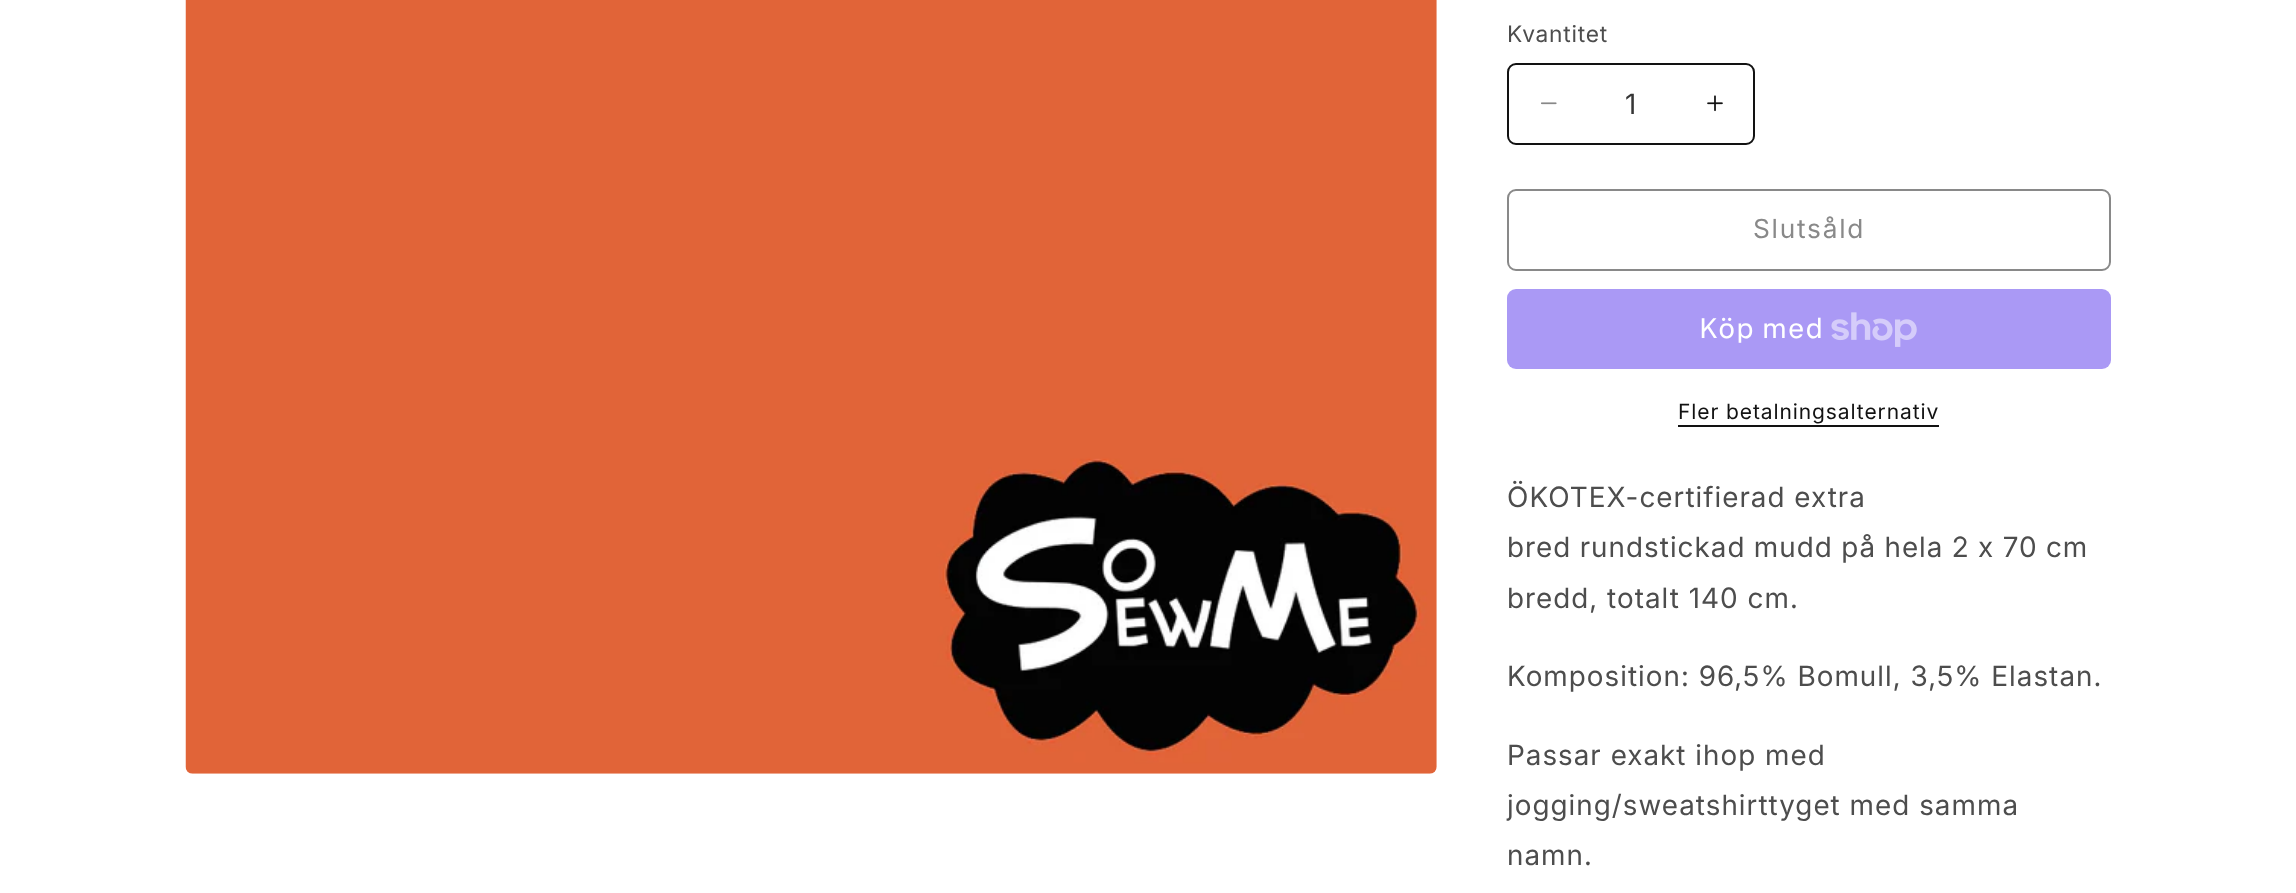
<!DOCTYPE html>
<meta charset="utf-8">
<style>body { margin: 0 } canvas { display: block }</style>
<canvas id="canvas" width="2296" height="893"></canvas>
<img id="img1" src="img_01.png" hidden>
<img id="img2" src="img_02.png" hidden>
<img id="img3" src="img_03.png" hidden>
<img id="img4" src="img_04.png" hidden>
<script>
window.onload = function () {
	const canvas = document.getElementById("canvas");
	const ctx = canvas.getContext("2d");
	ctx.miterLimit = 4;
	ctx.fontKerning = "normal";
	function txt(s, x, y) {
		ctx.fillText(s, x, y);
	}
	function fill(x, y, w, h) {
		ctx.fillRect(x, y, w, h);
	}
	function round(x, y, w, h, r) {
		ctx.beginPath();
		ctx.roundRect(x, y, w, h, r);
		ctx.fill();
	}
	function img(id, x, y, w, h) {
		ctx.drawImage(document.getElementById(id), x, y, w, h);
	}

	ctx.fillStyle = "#FFFFFF";
	fill(0, 0, 2296, 893);
	img("img1", 185, 0, 1252, 774);
	img("img2", 1541, 102, 16, 3);
	img("img3", 1707, 95, 16, 17);
	ctx.beginPath();
	ctx.roundRect(1508, 64, 246, 80, 8);
	ctx.strokeStyle = "#121212";
	ctx.lineWidth = 2;
	ctx.stroke();
	ctx.beginPath();
	ctx.roundRect(1508, 190, 602, 80, 8);
	ctx.strokeStyle = "#898989";
	ctx.stroke();
	ctx.fillStyle = "#AA99F5";
	round(1507, 289, 604, 80, 9);
	img("img4", 1831, 312, 86, 35);
	ctx.fillStyle = "#121212";
	fill(1678, 425, 261, 2);
	ctx.letterSpacing = "0.75px";
	ctx.font = "22.75px Inter";
	ctx.fillStyle = "#4D4D4D";
	txt("Kvantitet", 1507, 42);
	ctx.letterSpacing = "0px";
	ctx.font = "28px 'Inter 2'";
	ctx.fillStyle = "#363636";
	txt("1", 1625, 114);
	ctx.letterSpacing = "1.75px";
	ctx.font = "26.25px Inter";
	ctx.fillStyle = "#898989";
	txt("Slutsåld", 1753, 238);
	ctx.letterSpacing = "1.05px";
	ctx.font = "28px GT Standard";
	ctx.fillStyle = "#FFFFFF";
	txt("Köp med", 1699, 338);
	ctx.letterSpacing = "0.9px";
	ctx.font = "21px Inter";
	ctx.fillStyle = "#121212";
	txt("Fler betalningsalternativ", 1678, 419);
	ctx.letterSpacing = "1.05px";
	ctx.font = "28px 'Inter 2'";
	ctx.fillStyle = "#4D4D4D";
	txt("ÖKOTEX-certifierad extra", 1507, 507);
	ctx.wordSpacing = "-0.5px";
	txt("bred rundstickad mudd på hela 2 x 70 cm", 1507, 557);
	ctx.wordSpacing = "0px";
	txt("bredd, totalt 140 cm.", 1507, 608);
	txt("Komposition: 96,5% Bomull, 3,5% Elastan.", 1507, 686);
	txt("Passar exakt ihop med", 1507, 765);
	txt("jogging/sweatshirttyget med samma", 1507, 815);
	txt("namn.", 1507, 865);
};
</script>
